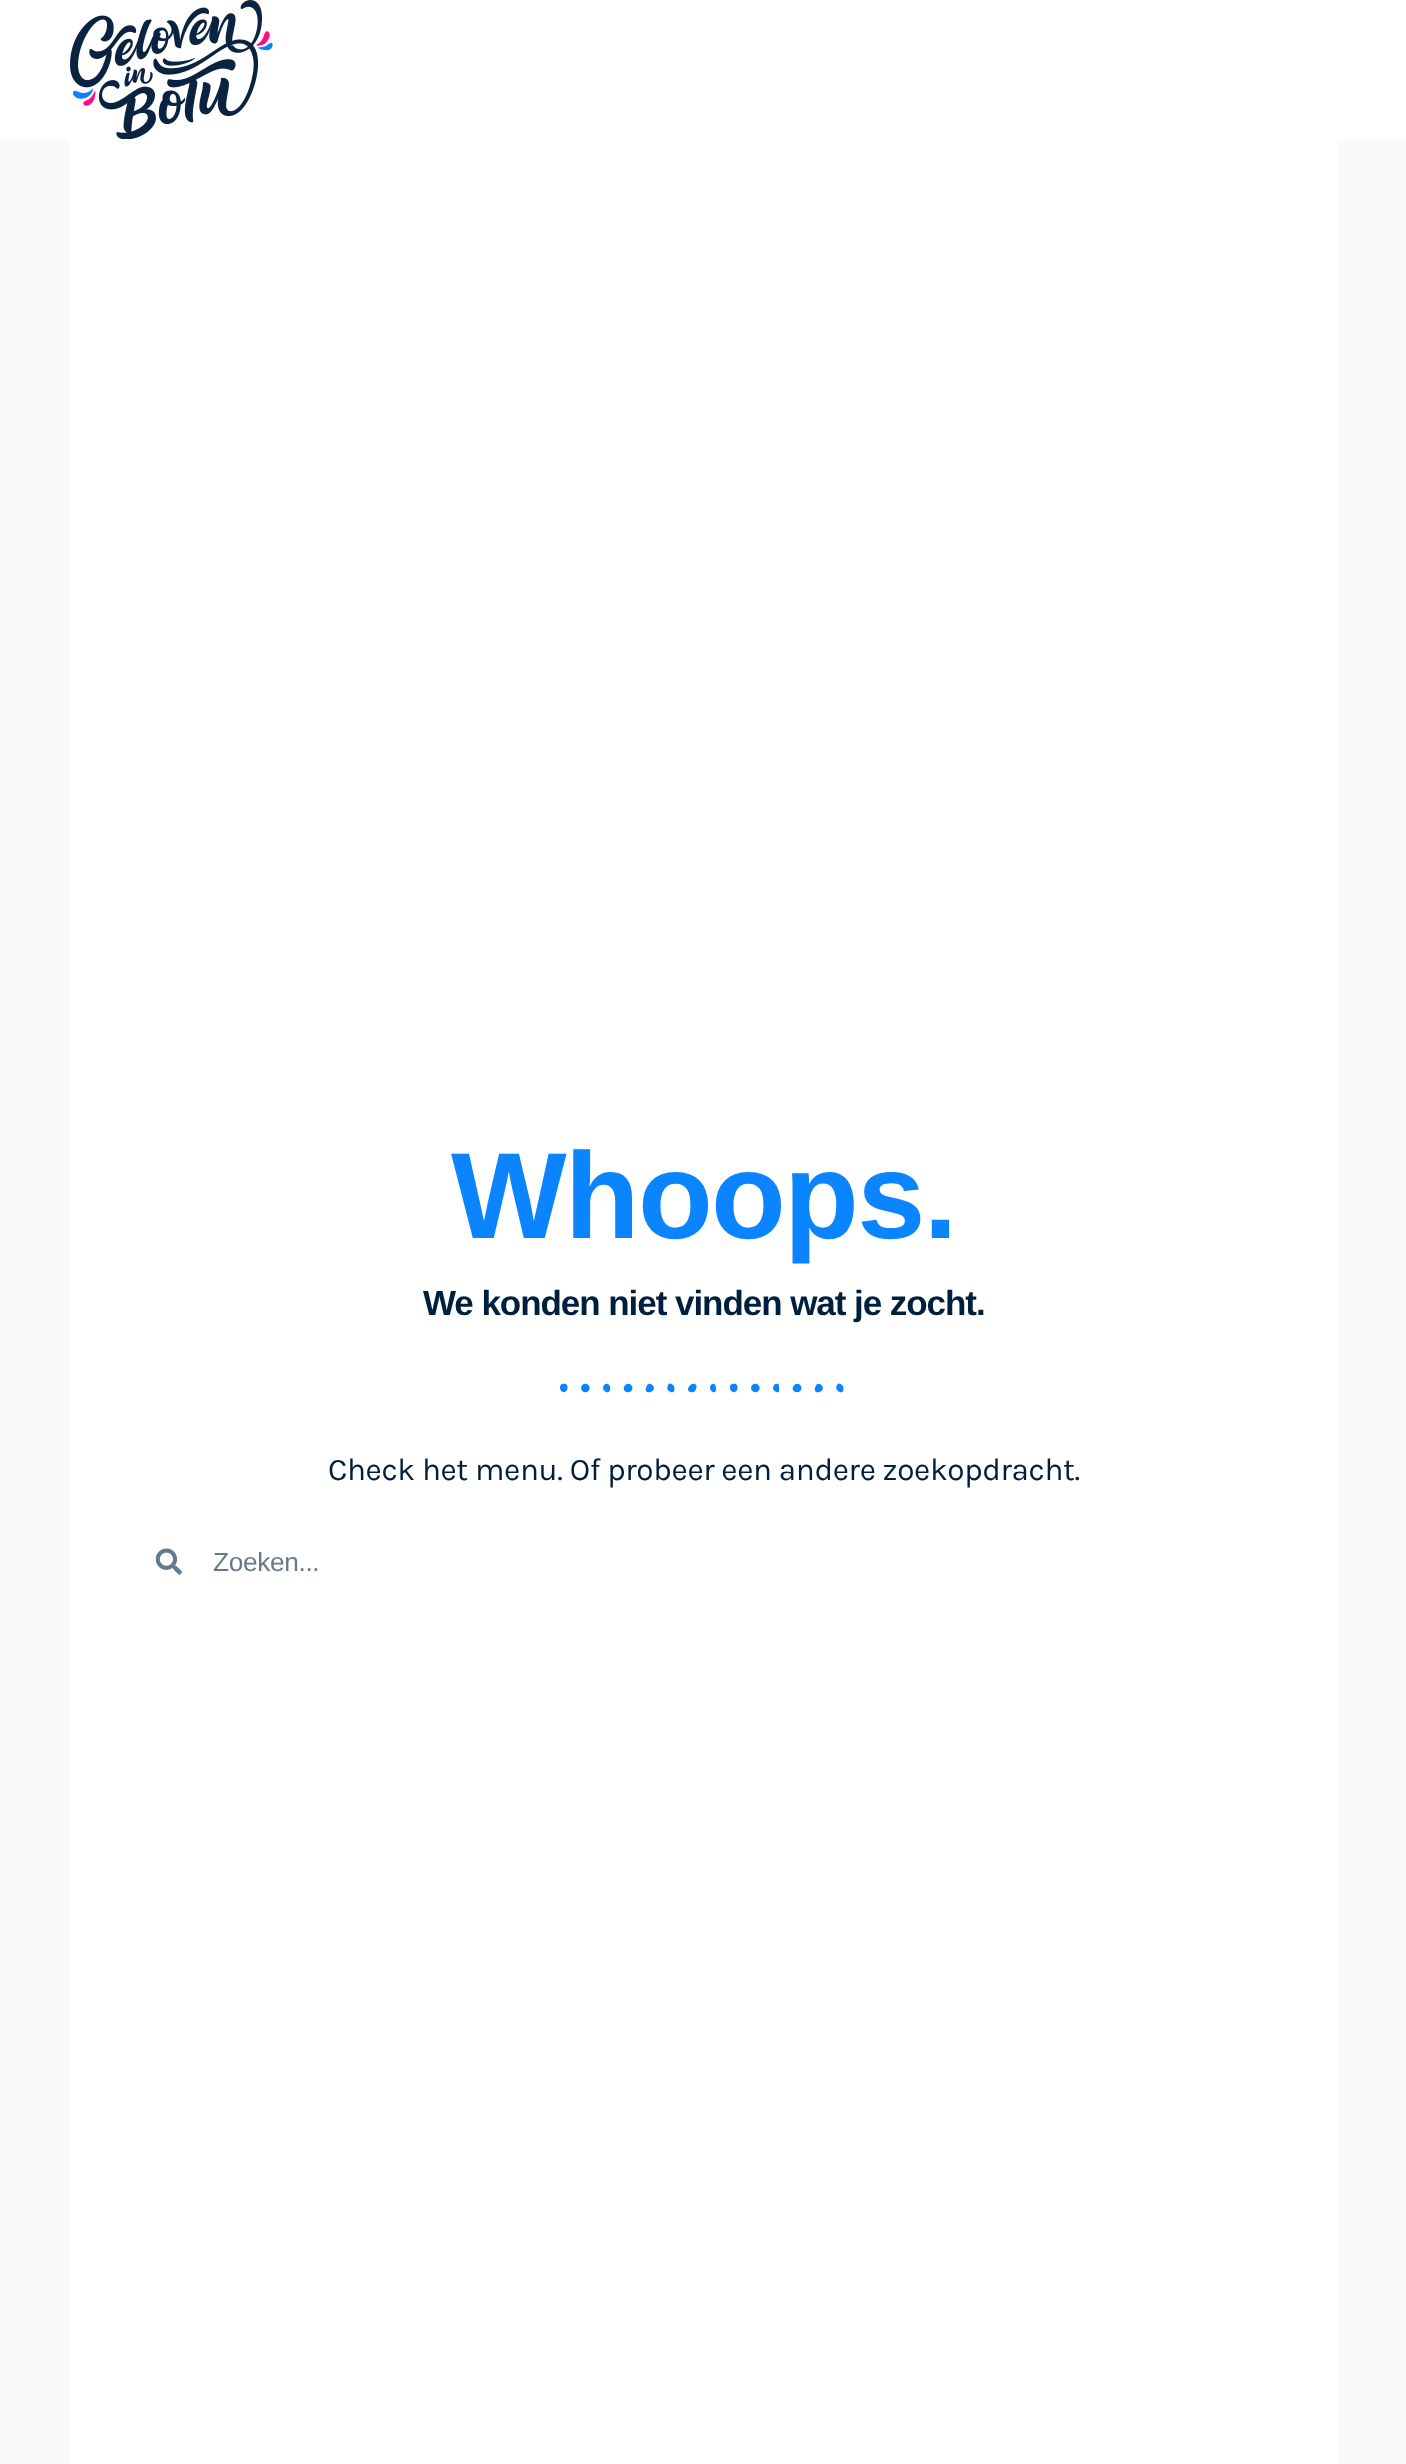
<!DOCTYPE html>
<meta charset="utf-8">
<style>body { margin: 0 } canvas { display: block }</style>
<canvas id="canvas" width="1406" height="2464"></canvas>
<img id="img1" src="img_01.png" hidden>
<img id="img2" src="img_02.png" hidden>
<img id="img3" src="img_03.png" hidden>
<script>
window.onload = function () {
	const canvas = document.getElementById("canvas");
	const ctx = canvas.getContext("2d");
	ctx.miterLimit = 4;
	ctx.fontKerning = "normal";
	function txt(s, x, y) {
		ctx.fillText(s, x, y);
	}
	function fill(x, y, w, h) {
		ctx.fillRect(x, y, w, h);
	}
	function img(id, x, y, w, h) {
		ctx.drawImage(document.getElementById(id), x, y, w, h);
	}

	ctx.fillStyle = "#FAFAFA";
	fill(0, 0, 1406, 2464);
	ctx.fillStyle = "#FFFFFF";
	fill(0, 0, 1406, 140);
	img("img1", 70, 0, 203, 139);
	fill(70, 140, 1267, 2324);
	img("img2", 560, 1383, 284, 10);
	img("img3", 155, 1548, 27, 27);
	ctx.letterSpacing = "-1.75px";
	ctx.font = "bold 122.5px Liberation Sans";
	ctx.fillStyle = "#0A84FF";
	txt("Whoops.", 451, 1238);
	ctx.letterSpacing = "-1.05px";
	ctx.font = "bold 35px Liberation Sans";
	ctx.fillStyle = "#001F3D";
	txt("We konden niet vinden wat je zocht.", 423, 1315);
	ctx.letterSpacing = "-0.35px";
	ctx.font = "31.5px Karla";
	txt("Check het menu. Of probeer een andere zoekopdracht.", 328, 1480);
	ctx.font = "26.25px Liberation Sans";
	ctx.fillStyle = "#66798B";
	txt("Zoeken...", 213, 1571);
};
</script>
